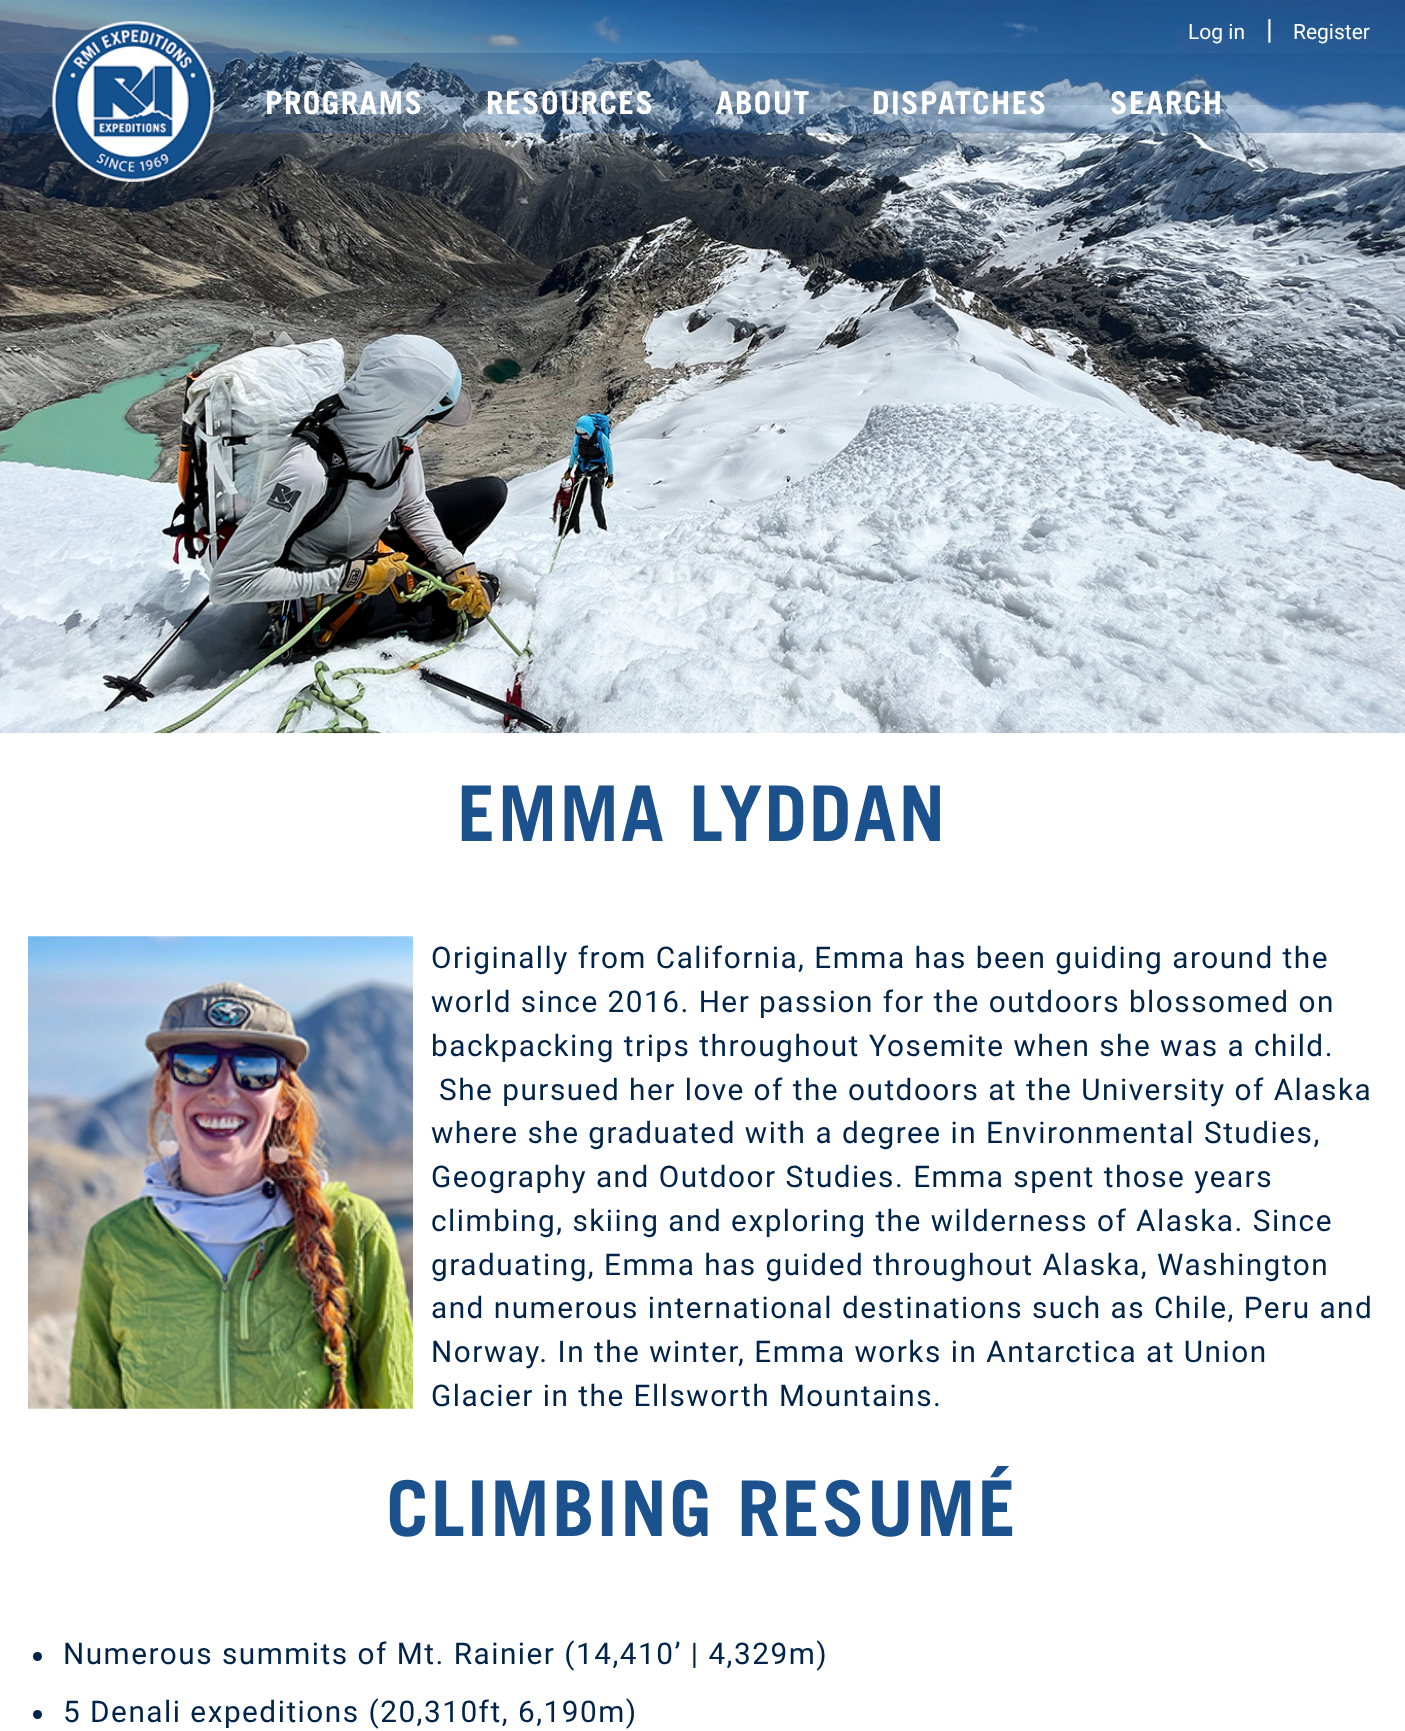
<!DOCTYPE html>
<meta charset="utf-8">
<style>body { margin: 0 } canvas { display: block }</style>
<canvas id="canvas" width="1405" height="1731"></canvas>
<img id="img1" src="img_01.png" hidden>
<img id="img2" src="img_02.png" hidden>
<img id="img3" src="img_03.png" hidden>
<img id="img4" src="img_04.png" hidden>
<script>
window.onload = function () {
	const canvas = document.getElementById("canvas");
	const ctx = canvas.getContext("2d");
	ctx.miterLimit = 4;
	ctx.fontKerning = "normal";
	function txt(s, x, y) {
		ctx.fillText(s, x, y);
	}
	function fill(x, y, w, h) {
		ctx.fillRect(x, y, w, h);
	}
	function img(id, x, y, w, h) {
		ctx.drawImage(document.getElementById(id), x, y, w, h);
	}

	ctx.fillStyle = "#FFFFFF";
	fill(0, 0, 1405, 1731);
	img("img1", 0, 0, 1405, 734);
	img("img2", 0, 0, 1405, 105);
	ctx.fillStyle = "rgba(27, 81, 140, 0.3)";
	fill(0, 53, 1405, 80);
	img("img3", 52, 21, 162, 161);
	img("img4", 28, 936, 385, 473);
	ctx.fillStyle = "#002349";
	ctx.beginPath();
	ctx.arc(37.5, 1656.5, 4.5, 0, Math.PI * 2);
	ctx.fill();
	ctx.beginPath();
	ctx.arc(37.5, 1714.5, 4.5, 0, Math.PI * 2);
	ctx.fill();
	ctx.letterSpacing = "1.4px";
	ctx.font = "bold 31.5px Trade Gothic";
	ctx.fillStyle = "#FFFFFF";
	txt("PROGRAMS", 265, 114);
	txt("RESOURCES", 486, 114);
	txt("ABOUT", 716, 114);
	txt("DISPATCHES", 872, 114);
	txt("SEARCH", 1110, 114);
	ctx.letterSpacing = "0px";
	ctx.font = "21px Roboto";
	txt("Log in", 1188, 39);
	ctx.font = "28px Roboto";
	txt("|", 1266, 39);
	ctx.font = "21px Roboto";
	txt("Register", 1293, 39);
	ctx.letterSpacing = "1.9px";
	ctx.font = "bold 77px Trade Gothic";
	ctx.fillStyle = "#1B518C";
	txt("EMMA LYDDAN", 457, 841);
	ctx.letterSpacing = "1.5px";
	ctx.font = "29.75px Roboto";
	ctx.fillStyle = "#002349";
	txt("Originally from California, Emma has been guiding around the", 431, 968);
	txt("world since 2016. Her passion for the outdoors blossomed on", 431, 1012);
	txt("backpacking trips throughout Yosemite when she was a child.", 431, 1056);
	txt("She pursued her love of the outdoors at the University of Alaska", 439, 1100);
	txt("where she graduated with a degree in Environmental Studies,", 431, 1143);
	txt("Geography and Outdoor Studies. Emma spent those years", 431, 1187);
	txt("climbing, skiing and exploring the wilderness of Alaska. Since", 431, 1231);
	txt("graduating, Emma has guided throughout Alaska, Washington", 431, 1275);
	txt("and numerous international destinations such as Chile, Peru and", 431, 1318);
	txt("Norway. In the winter, Emma works in Antarctica at Union", 431, 1362);
	txt("Glacier in the Ellsworth Mountains.", 431, 1406);
	ctx.letterSpacing = "1.9px";
	ctx.font = "bold 77px Trade Gothic";
	ctx.fillStyle = "#1B518C";
	txt("CLIMBING RESUMÉ", 386, 1536);
	ctx.letterSpacing = "1.5px";
	ctx.font = "29.75px Roboto";
	ctx.fillStyle = "#002349";
	txt("Numerous summits of Mt. Rainier (14,410’ | 4,329m)", 63, 1664);
	txt("5 Denali expeditions (20,310ft, 6,190m)", 63, 1722);
};
</script>
